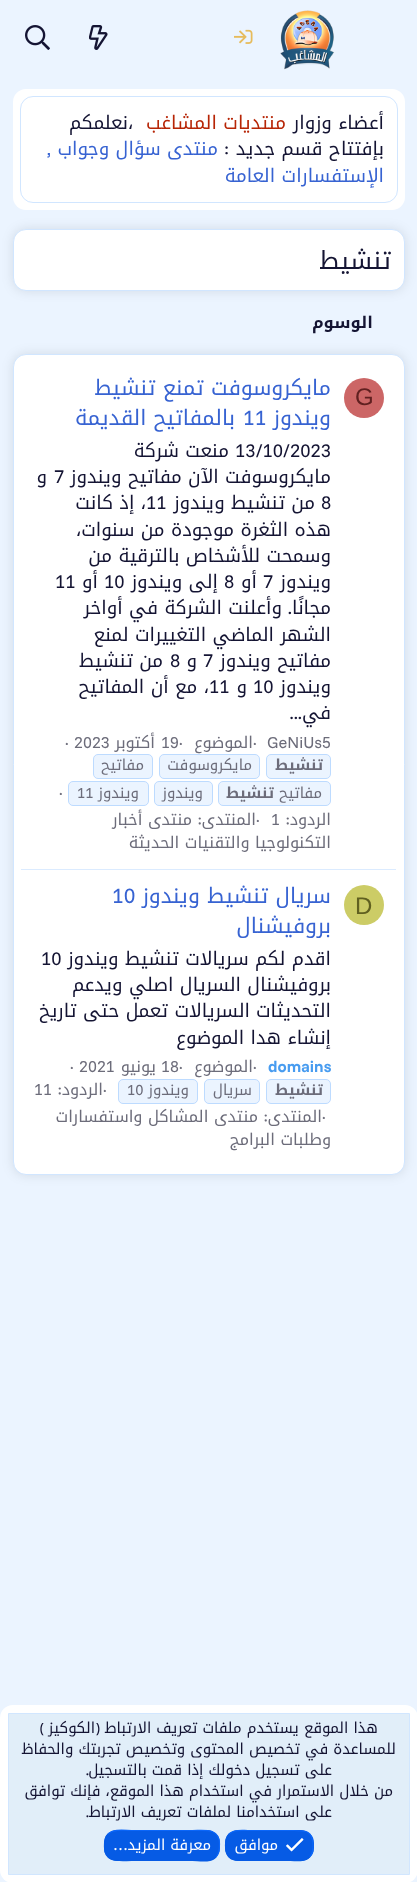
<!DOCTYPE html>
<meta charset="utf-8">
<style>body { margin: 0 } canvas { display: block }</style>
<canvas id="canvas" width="417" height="1882"></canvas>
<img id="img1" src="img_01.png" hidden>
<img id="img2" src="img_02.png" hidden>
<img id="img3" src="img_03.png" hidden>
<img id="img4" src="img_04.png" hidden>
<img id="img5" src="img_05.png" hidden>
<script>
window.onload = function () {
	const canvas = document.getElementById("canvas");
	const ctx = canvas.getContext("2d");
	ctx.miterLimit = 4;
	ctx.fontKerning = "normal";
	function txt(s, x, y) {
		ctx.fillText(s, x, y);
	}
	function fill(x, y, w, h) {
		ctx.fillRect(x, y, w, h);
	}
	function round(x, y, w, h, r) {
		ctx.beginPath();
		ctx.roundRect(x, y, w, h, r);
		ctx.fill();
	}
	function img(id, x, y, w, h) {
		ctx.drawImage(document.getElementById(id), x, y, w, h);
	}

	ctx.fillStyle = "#EBF4FF";
	fill(0, 0, 417, 1882);
	img("img1", 280, 10, 55, 60);
	img("img2", 234, 29, 19, 15);
	img("img3", 89, 25, 19, 25);
	img("img4", 25, 25, 25, 25);
	ctx.fillStyle = "#FFFFFF";
	round(13, 89, 392, 121, 13);
	ctx.beginPath();
	ctx.roundRect(20.5, 96.5, 377, 106, 12.5);
	ctx.strokeStyle = "#D1E6FF";
	ctx.stroke();
	ctx.fillStyle = "rgba(0, 0, 0, 0.1)";
	ctx.filter = "blur(6px)";
	ctx.beginPath();
	ctx.roundRect(13, 229, 392, 62, 13);
	ctx.fill();
	ctx.filter = "none";
	ctx.fillStyle = "#FFFFFF";
	ctx.beginPath();
	ctx.roundRect(13.5, 229.5, 391, 61, 12.5);
	ctx.fill();
	ctx.stroke();
	ctx.fillStyle = "rgba(0, 0, 0, 0.1)";
	ctx.filter = "blur(6px)";
	ctx.beginPath();
	ctx.roundRect(13, 354, 392, 821, 13);
	ctx.fill();
	ctx.filter = "none";
	ctx.fillStyle = "#FFFFFF";
	ctx.beginPath();
	ctx.roundRect(13.5, 354.5, 391, 820, 12.5);
	ctx.fill();
	ctx.stroke();
	ctx.fillStyle = "#CC6666";
	ctx.beginPath();
	ctx.arc(364, 398, 20, 0, Math.PI * 2);
	ctx.fill();
	ctx.fillStyle = "#EBF4FF";
	ctx.beginPath();
	ctx.roundRect(266.5, 754.5, 64, 24, 4.5);
	ctx.fill();
	ctx.strokeStyle = "#BDDBFF";
	ctx.stroke();
	ctx.beginPath();
	ctx.roundRect(159.5, 754.5, 100, 24, 4.5);
	ctx.fill();
	ctx.stroke();
	ctx.beginPath();
	ctx.roundRect(93.5, 754.5, 59, 24, 4.5);
	ctx.fill();
	ctx.stroke();
	ctx.beginPath();
	ctx.roundRect(218.5, 781.5, 112, 24, 4.5);
	ctx.fill();
	ctx.stroke();
	ctx.beginPath();
	ctx.roundRect(154.5, 781.5, 58, 24, 4.5);
	ctx.fill();
	ctx.stroke();
	ctx.beginPath();
	ctx.roundRect(68.5, 781.5, 80, 24, 4.5);
	ctx.fill();
	ctx.stroke();
	ctx.fillStyle = "#DBEBFF";
	fill(21, 869, 375, 1);
	ctx.fillStyle = "#CCCC66";
	ctx.beginPath();
	ctx.arc(364, 905, 20, 0, Math.PI * 2);
	ctx.fill();
	ctx.fillStyle = "#EBF4FF";
	ctx.beginPath();
	ctx.roundRect(266.5, 1079.5, 64, 24, 4.5);
	ctx.fill();
	ctx.stroke();
	ctx.beginPath();
	ctx.roundRect(204.5, 1079.5, 55, 24, 4.5);
	ctx.fill();
	ctx.stroke();
	ctx.beginPath();
	ctx.roundRect(118.5, 1079.5, 79, 24, 4.5);
	ctx.fill();
	ctx.stroke();
	ctx.fillStyle = "#FFFFFF";
	round(0, 1705, 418, 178, 13);
	ctx.fillStyle = "#E1EEF9";
	ctx.beginPath();
	ctx.rect(8.5, 1713.5, 401, 161);
	ctx.fill();
	ctx.strokeStyle = "#D1E6FF";
	ctx.stroke();
	ctx.fillStyle = "#065BE5";
	round(225, 1830, 89, 31, 13);
	ctx.beginPath();
	ctx.moveTo(229, 1834);
	ctx.bezierCurveTo(234, 1829, 242, 1830.5, 248, 1830.5);
	ctx.lineTo(290.5, 1830.5);
	ctx.bezierCurveTo(304, 1830.5, 313, 1829.5, 313, 1845.5);
	ctx.bezierCurveTo(313, 1850, 313, 1854, 309.5, 1857);
	ctx.strokeStyle = "#0B66F9";
	ctx.lineWidth = 1.2;
	ctx.stroke();
	ctx.beginPath();
	ctx.moveTo(309.5, 1857);
	ctx.bezierCurveTo(304.5, 1862, 297, 1860.5, 290.5, 1860.5);
	ctx.lineTo(248, 1860.5);
	ctx.bezierCurveTo(234.5, 1860.5, 225.5, 1861.5, 225.5, 1845.5);
	ctx.bezierCurveTo(225.5, 1841.5, 226, 1837.5, 229, 1834);
	ctx.strokeStyle = "#065BE5";
	ctx.stroke();
	img("img5", 286, 1838, 18, 14);
	round(104, 1830, 116, 31, 13);
	ctx.beginPath();
	ctx.moveTo(108, 1834);
	ctx.bezierCurveTo(113.5, 1828.5, 125, 1830.5, 131.5, 1830.5);
	ctx.lineTo(192.5, 1830.5);
	ctx.bezierCurveTo(204.5, 1830.5, 219.5, 1827.5, 219.5, 1844);
	ctx.bezierCurveTo(219.5, 1849, 219.5, 1853.5, 216, 1857);
	ctx.strokeStyle = "#0B66F9";
	ctx.stroke();
	ctx.beginPath();
	ctx.moveTo(216, 1857);
	ctx.bezierCurveTo(210, 1863, 199, 1860.5, 192.5, 1860.5);
	ctx.lineTo(131.5, 1860.5);
	ctx.bezierCurveTo(119.5, 1860.5, 104.5, 1863.5, 104.5, 1847);
	ctx.bezierCurveTo(104.5, 1842.5, 104, 1838, 108, 1834);
	ctx.strokeStyle = "#065BE5";
	ctx.stroke();
	ctx.direction = "rtl";
	ctx.font = "18.75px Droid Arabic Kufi";
	ctx.fillStyle = "#141433";
	txt("أعضاء وزوار", 384, 129);
	ctx.fillStyle = "#B72506";
	txt("منتديات المشاغب", 286, 129);
	ctx.direction = "ltr";
	ctx.fillStyle = "#141433";
	txt("،", 128, 129);
	ctx.direction = "rtl";
	txt("نعلمكم", 128, 129);
	txt("بإفتتاح قسم جديد", 384, 155);
	ctx.font = "18.75px Funnel Sans";
	txt(":", 229, 155);
	ctx.font = "18.75px Droid Arabic Kufi";
	ctx.fillStyle = "#3763D2";
	txt("منتدى سؤال وجواب", 218, 155);
	ctx.font = "18.75px Funnel Sans";
	txt(",", 51, 155);
	ctx.font = "18.75px Droid Arabic Kufi";
	txt("الإستفسارات العامة", 384, 182);
	ctx.font = "25px Droid Arabic Kufi";
	ctx.fillStyle = "#141433";
	txt("تنشيط", 391, 269);
	ctx.font = "bold 16.25px Droid Arabic Kufi";
	txt("الوسوم", 373, 328);
	ctx.direction = "ltr";
	ctx.font = "24px Liberation Sans";
	ctx.fillStyle = "#602020";
	txt("G", 355, 405);
	ctx.direction = "rtl";
	ctx.font = "21.25px Droid Arabic Kufi";
	ctx.fillStyle = "#3763D2";
	txt("مايكروسوفت تمنع تنشيط", 331, 395);
	txt("ويندوز", 331, 425);
	ctx.direction = "ltr";
	ctx.font = "21.25px Funnel Sans";
	txt("11", 243, 425);
	ctx.direction = "rtl";
	ctx.font = "21.25px Droid Arabic Kufi";
	txt("بالمفاتيح القديمة", 235, 425);
	ctx.direction = "ltr";
	ctx.font = "18.75px Funnel Sans";
	ctx.fillStyle = "#141433";
	txt("13/10/2023", 235, 457);
	ctx.direction = "rtl";
	ctx.font = "18.75px Droid Arabic Kufi";
	txt("منعت شركة", 229, 457);
	txt("مايكروسوفت الآن مفاتيح ويندوز", 331, 483);
	ctx.direction = "ltr";
	ctx.font = "18.75px Funnel Sans";
	txt("7", 54, 483);
	ctx.direction = "rtl";
	ctx.font = "18.75px Droid Arabic Kufi";
	txt("و", 47, 483);
	ctx.direction = "ltr";
	ctx.font = "18.75px Funnel Sans";
	txt("8", 321, 509);
	ctx.direction = "rtl";
	ctx.font = "18.75px Droid Arabic Kufi";
	txt("من تنشيط ويندوز", 315, 509);
	ctx.direction = "ltr";
	ctx.font = "18.75px Funnel Sans";
	txt("11", 146, 509);
	ctx.direction = "rtl";
	ctx.font = "18.75px Droid Arabic Kufi";
	txt("، إذ كانت", 146, 509);
	txt("هذه الثغرة موجودة من سنوات،", 331, 536);
	txt("وسمحت للأشخاص بالترقية من", 331, 562);
	txt("ويندوز", 331, 588);
	ctx.direction = "ltr";
	ctx.font = "18.75px Funnel Sans";
	txt("7", 263, 588);
	ctx.direction = "rtl";
	ctx.font = "18.75px Droid Arabic Kufi";
	txt("أو", 257, 588);
	ctx.direction = "ltr";
	ctx.font = "18.75px Funnel Sans";
	txt("8", 224, 588);
	ctx.direction = "rtl";
	ctx.font = "18.75px Droid Arabic Kufi";
	txt("إلى ويندوز", 218, 588);
	ctx.direction = "ltr";
	ctx.font = "18.75px Funnel Sans";
	txt("10", 104, 588);
	ctx.direction = "rtl";
	ctx.font = "18.75px Droid Arabic Kufi";
	txt("أو", 98, 588);
	ctx.direction = "ltr";
	ctx.font = "18.75px Funnel Sans";
	txt("11", 55, 588);
	ctx.direction = "rtl";
	ctx.font = "18.75px Droid Arabic Kufi";
	txt("مجانًا", 331, 614);
	ctx.font = "18.75px Funnel Sans";
	txt(".", 292, 614);
	ctx.font = "18.75px Droid Arabic Kufi";
	txt("وأعلنت الشركة في أواخر", 282, 614);
	txt("الشهر الماضي التغييرات لمنع", 331, 641);
	txt("مفاتيح ويندوز", 331, 667);
	ctx.direction = "ltr";
	ctx.font = "18.75px Funnel Sans";
	txt("7", 203, 667);
	ctx.direction = "rtl";
	ctx.font = "18.75px Droid Arabic Kufi";
	txt("و", 197, 667);
	ctx.direction = "ltr";
	ctx.font = "18.75px Funnel Sans";
	txt("8", 170, 667);
	ctx.direction = "rtl";
	ctx.font = "18.75px Droid Arabic Kufi";
	txt("من تنشيط", 163, 667);
	txt("ويندوز", 331, 693);
	ctx.direction = "ltr";
	ctx.font = "18.75px Funnel Sans";
	txt("10", 253, 693);
	ctx.direction = "rtl";
	ctx.font = "18.75px Droid Arabic Kufi";
	txt("و", 247, 693);
	ctx.direction = "ltr";
	ctx.font = "18.75px Funnel Sans";
	txt("11", 209, 693);
	ctx.direction = "rtl";
	ctx.font = "18.75px Droid Arabic Kufi";
	txt("، مع أن المفاتيح", 209, 693);
	txt("في", 331, 719);
	ctx.font = "18.75px Funnel Sans";
	txt("...", 302, 719);
	ctx.direction = "ltr";
	ctx.font = "16.25px Funnel Sans";
	ctx.fillStyle = "#6C6C7A";
	txt("GeNiUs5", 267, 748);
	ctx.direction = "rtl";
	ctx.font = "16.25px Droid Arabic Kufi";
	txt("الموضوع", 253, 748);
	ctx.direction = "ltr";
	ctx.font = "16.25px Funnel Sans";
	txt("19", 161, 748);
	ctx.direction = "rtl";
	ctx.font = "16.25px Droid Arabic Kufi";
	txt("أكتوبر", 155, 748);
	ctx.direction = "ltr";
	ctx.font = "16.25px Funnel Sans";
	txt("2023", 74, 748);
	txt("·", 65, 748);
	ctx.direction = "rtl";
	ctx.font = "bold 15px Droid Arabic Kufi";
	txt("تنشيط", 323, 770);
	ctx.font = "15px Droid Arabic Kufi";
	txt("مايكروسوفت", 252, 770);
	txt("مفاتيح", 144, 770);
	txt("مفاتيح", 322, 798);
	ctx.font = "bold 15px Droid Arabic Kufi";
	txt("تنشيط", 274, 798);
	ctx.font = "15px Droid Arabic Kufi";
	txt("ويندوز", 203, 798);
	txt("ويندوز", 139, 798);
	ctx.direction = "ltr";
	ctx.font = "15px Funnel Sans";
	txt("11", 77, 798);
	ctx.font = "16.25px Funnel Sans";
	txt("·", 253, 748);
	txt("·", 179, 748);
	txt("·", 59, 798);
	ctx.direction = "rtl";
	ctx.font = "16.25px Droid Arabic Kufi";
	txt("الردود", 331, 825);
	ctx.font = "16.25px Funnel Sans";
	txt(":", 290, 825);
	ctx.direction = "ltr";
	txt("1", 271, 825);
	txt("·", 256, 825);
	ctx.direction = "rtl";
	ctx.font = "16.25px Droid Arabic Kufi";
	txt("المنتدى", 256, 825);
	ctx.font = "16.25px Funnel Sans";
	txt(":", 202, 825);
	ctx.font = "16.25px Droid Arabic Kufi";
	txt("منتدى أخبار", 192, 825);
	txt("التكنولوجيا والتقنيات الحديثة", 331, 848);
	ctx.direction = "ltr";
	ctx.font = "24px Liberation Sans";
	ctx.fillStyle = "#606020";
	txt("D", 355, 914);
	ctx.direction = "rtl";
	ctx.font = "21.25px Droid Arabic Kufi";
	ctx.fillStyle = "#3763D2";
	txt("سريال تنشيط ويندوز", 331, 903);
	ctx.direction = "ltr";
	ctx.font = "21.25px Funnel Sans";
	txt("10", 112, 903);
	ctx.direction = "rtl";
	ctx.font = "21.25px Droid Arabic Kufi";
	txt("بروفيشنال", 331, 933);
	ctx.font = "18.75px Droid Arabic Kufi";
	ctx.fillStyle = "#141433";
	txt("اقدم لكم سريالات تنشيط ويندوز", 331, 965);
	ctx.direction = "ltr";
	ctx.font = "18.75px Funnel Sans";
	txt("10", 41, 965);
	ctx.direction = "rtl";
	ctx.font = "18.75px Droid Arabic Kufi";
	txt("بروفيشنال", 331, 991);
	txt("السريال اصلي ويدعم", 241, 991);
	txt("التحديثات", 331, 1017);
	txt("السريالات تعمل حتى تاريخ", 250, 1017);
	txt("إنشاء هدا الموضوع", 331, 1044);
	ctx.direction = "ltr";
	ctx.font = "bold 16.25px Funnel Sans";
	ctx.fillStyle = "#489CF0";
	txt("domains", 268, 1072);
	ctx.direction = "rtl";
	ctx.font = "16.25px Droid Arabic Kufi";
	ctx.fillStyle = "#6C6C7A";
	txt("الموضوع", 253, 1072);
	ctx.direction = "ltr";
	ctx.font = "16.25px Funnel Sans";
	txt("18", 161, 1072);
	ctx.direction = "rtl";
	ctx.font = "16.25px Droid Arabic Kufi";
	txt("يونيو", 156, 1072);
	ctx.direction = "ltr";
	ctx.font = "16.25px Funnel Sans";
	txt("2021", 79, 1072);
	txt("·", 70, 1072);
	ctx.direction = "rtl";
	ctx.font = "bold 15px Droid Arabic Kufi";
	txt("تنشيط", 323, 1095);
	ctx.font = "15px Droid Arabic Kufi";
	txt("سريال", 252, 1095);
	txt("ويندوز", 189, 1095);
	ctx.direction = "ltr";
	ctx.font = "15px Funnel Sans";
	txt("10", 127, 1095);
	ctx.font = "16.25px Funnel Sans";
	txt("·", 253, 1072);
	txt("·", 179, 1072);
	txt("·", 103, 1095);
	ctx.direction = "rtl";
	ctx.font = "16.25px Droid Arabic Kufi";
	txt("الردود", 103, 1095);
	ctx.font = "16.25px Funnel Sans";
	txt(":", 62, 1095);
	ctx.direction = "ltr";
	txt("11", 34, 1095);
	txt("·", 322, 1122);
	ctx.direction = "rtl";
	ctx.font = "16.25px Droid Arabic Kufi";
	txt("المنتدى", 322, 1122);
	ctx.font = "16.25px Funnel Sans";
	txt(":", 268, 1122);
	ctx.font = "16.25px Droid Arabic Kufi";
	txt("منتدى المشاكل واستفسارات", 258, 1122);
	txt("وطلبات البرامج", 331, 1145);
	ctx.font = "15px Droid Arabic Kufi";
	ctx.fillStyle = "#141433";
	txt("هذا الموقع يستخدم ملفات تعريف الارتباط", 378, 1733);
	ctx.font = "15px Funnel Sans";
	txt("(", 100, 1733);
	ctx.font = "15px Droid Arabic Kufi";
	txt("الكوكيز", 95, 1733);
	ctx.font = "15px Funnel Sans";
	txt(")", 44, 1733);
	ctx.font = "15px Droid Arabic Kufi";
	txt("للمساعدة في تخصيص المحتوى وتخصيص تجربتك والحفاظ", 396, 1754);
	txt("على تسجيل دخولك إذا قمت بالتسجيل", 332, 1775);
	ctx.font = "15px Funnel Sans";
	txt(".", 89, 1775);
	ctx.font = "15px Droid Arabic Kufi";
	txt("من خلال الاستمرار في استخدام هذا الموقع، فإنك توافق", 393, 1796);
	txt("على استخدامنا لملفات تعريف الارتباط", 332, 1817);
	ctx.font = "15px Funnel Sans";
	txt(".", 89, 1817);
	ctx.font = "15px Droid Arabic Kufi";
	ctx.fillStyle = "#FFFFFF";
	txt("موافق", 278, 1850);
	txt("معرفة المزيد", 211, 1850);
	ctx.font = "500 15px Funnel Sans";
	txt("…", 128, 1850);
};
</script>
